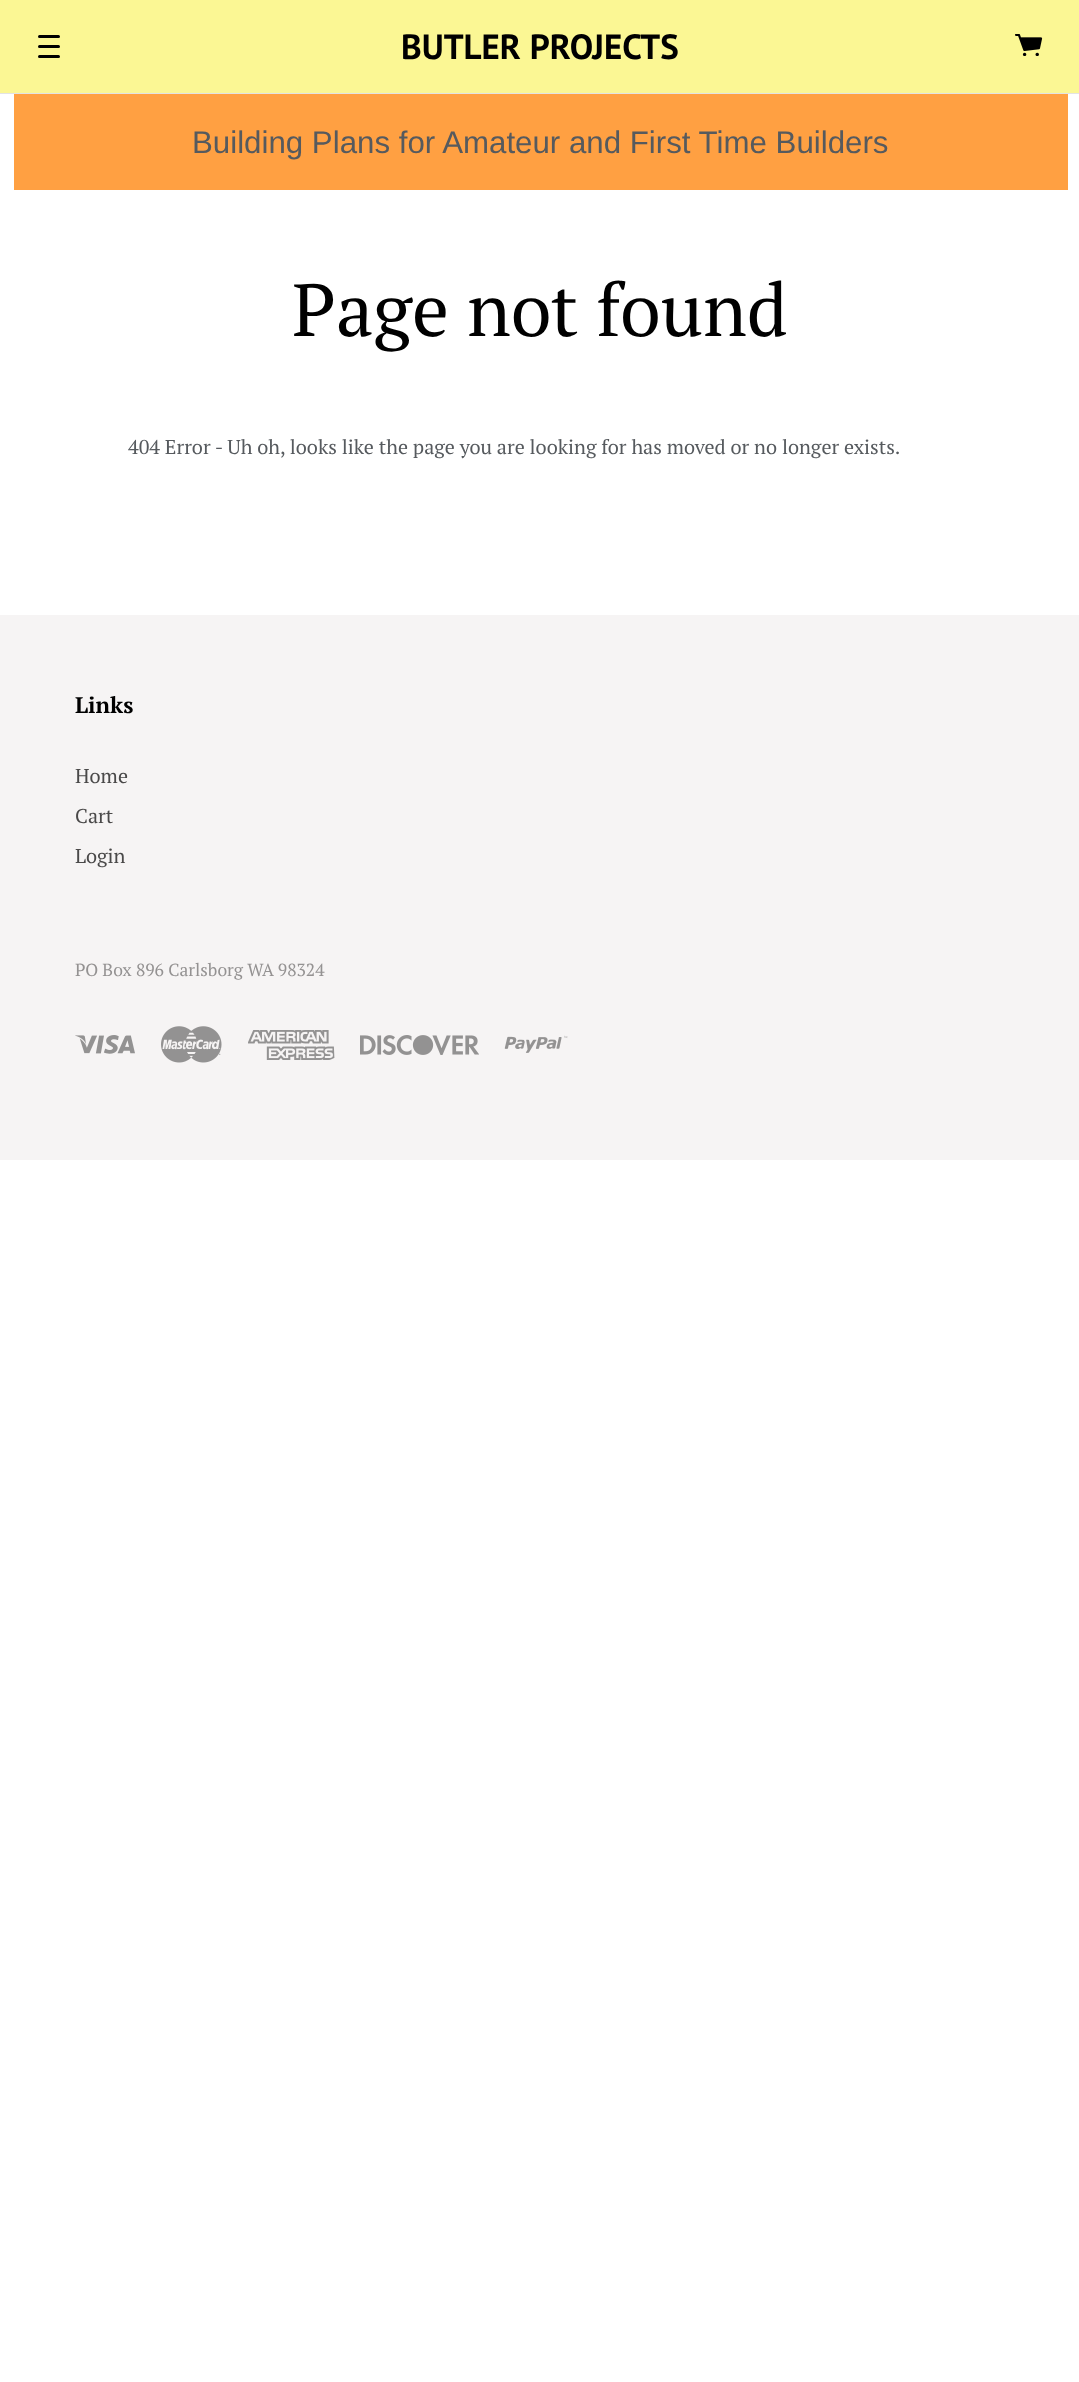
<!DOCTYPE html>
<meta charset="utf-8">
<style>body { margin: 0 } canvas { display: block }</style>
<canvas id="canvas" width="1079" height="2382"></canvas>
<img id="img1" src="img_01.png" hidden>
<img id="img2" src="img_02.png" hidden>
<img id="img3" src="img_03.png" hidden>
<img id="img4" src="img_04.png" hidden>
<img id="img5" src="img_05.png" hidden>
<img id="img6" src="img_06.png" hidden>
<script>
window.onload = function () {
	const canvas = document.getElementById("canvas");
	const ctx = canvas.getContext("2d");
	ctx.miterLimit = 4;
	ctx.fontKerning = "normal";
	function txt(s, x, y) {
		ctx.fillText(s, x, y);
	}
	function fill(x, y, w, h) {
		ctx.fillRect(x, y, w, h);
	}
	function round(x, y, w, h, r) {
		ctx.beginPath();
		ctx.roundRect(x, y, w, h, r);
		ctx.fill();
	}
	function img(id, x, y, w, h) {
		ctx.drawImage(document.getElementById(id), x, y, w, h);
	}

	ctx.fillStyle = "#FFFFFF";
	fill(0, 0, 1079, 2382);
	ctx.fillStyle = "#FBF794";
	fill(0, 0, 1079, 93);
	ctx.fillStyle = "#E3E3E3";
	fill(0, 93, 1079, 1);
	ctx.fillStyle = "#000000";
	round(38, 35, 22, 3, 1.5);
	round(38, 45, 22, 3, 1.5);
	round(38, 55, 22, 3, 1.5);
	img("img1", 1015, 34, 28, 22);
	ctx.fillStyle = "#FFA042";
	fill(14, 94, 1054, 96);
	ctx.fillStyle = "#F6F4F4";
	fill(0, 615, 1079, 545);
	img("img2", 75, 1035, 60, 19);
	img("img3", 161, 1026, 61, 37);
	img("img4", 248, 1030, 87, 30);
	img("img5", 360, 1035, 119, 20);
	img("img6", 504, 1035, 64, 18);
	ctx.font = "bold 35px PT Sans";
	ctx.fillStyle = "#000000";
	txt("BUTLER PROJECTS", 401, 59);
	ctx.font = "31.25px Liberation Sans";
	ctx.fillStyle = "#565A5E";
	txt("Building Plans for Amateur and First Time Builders", 192, 153);
	ctx.font = "73.75px PT Serif";
	ctx.fillStyle = "#000000";
	txt("Page not found", 292, 336);
	ctx.font = "20px PT Serif";
	ctx.fillStyle = "#565A5E";
	txt("404 Error - Uh oh, looks like the page you are looking for has moved or no longer exists.", 128, 454);
	ctx.font = "bold 22.5px PT Serif";
	ctx.fillStyle = "#000000";
	txt("Links", 75, 713);
	ctx.font = "20px PT Serif";
	ctx.fillStyle = "#4A4949";
	txt("Home", 75, 783);
	txt("Cart", 75, 823);
	txt("Login", 75, 863);
	ctx.font = "17.5px PT Serif";
	ctx.fillStyle = "#949292";
	txt("PO Box 896 Carlsborg WA 98324", 75, 976);
};
</script>
